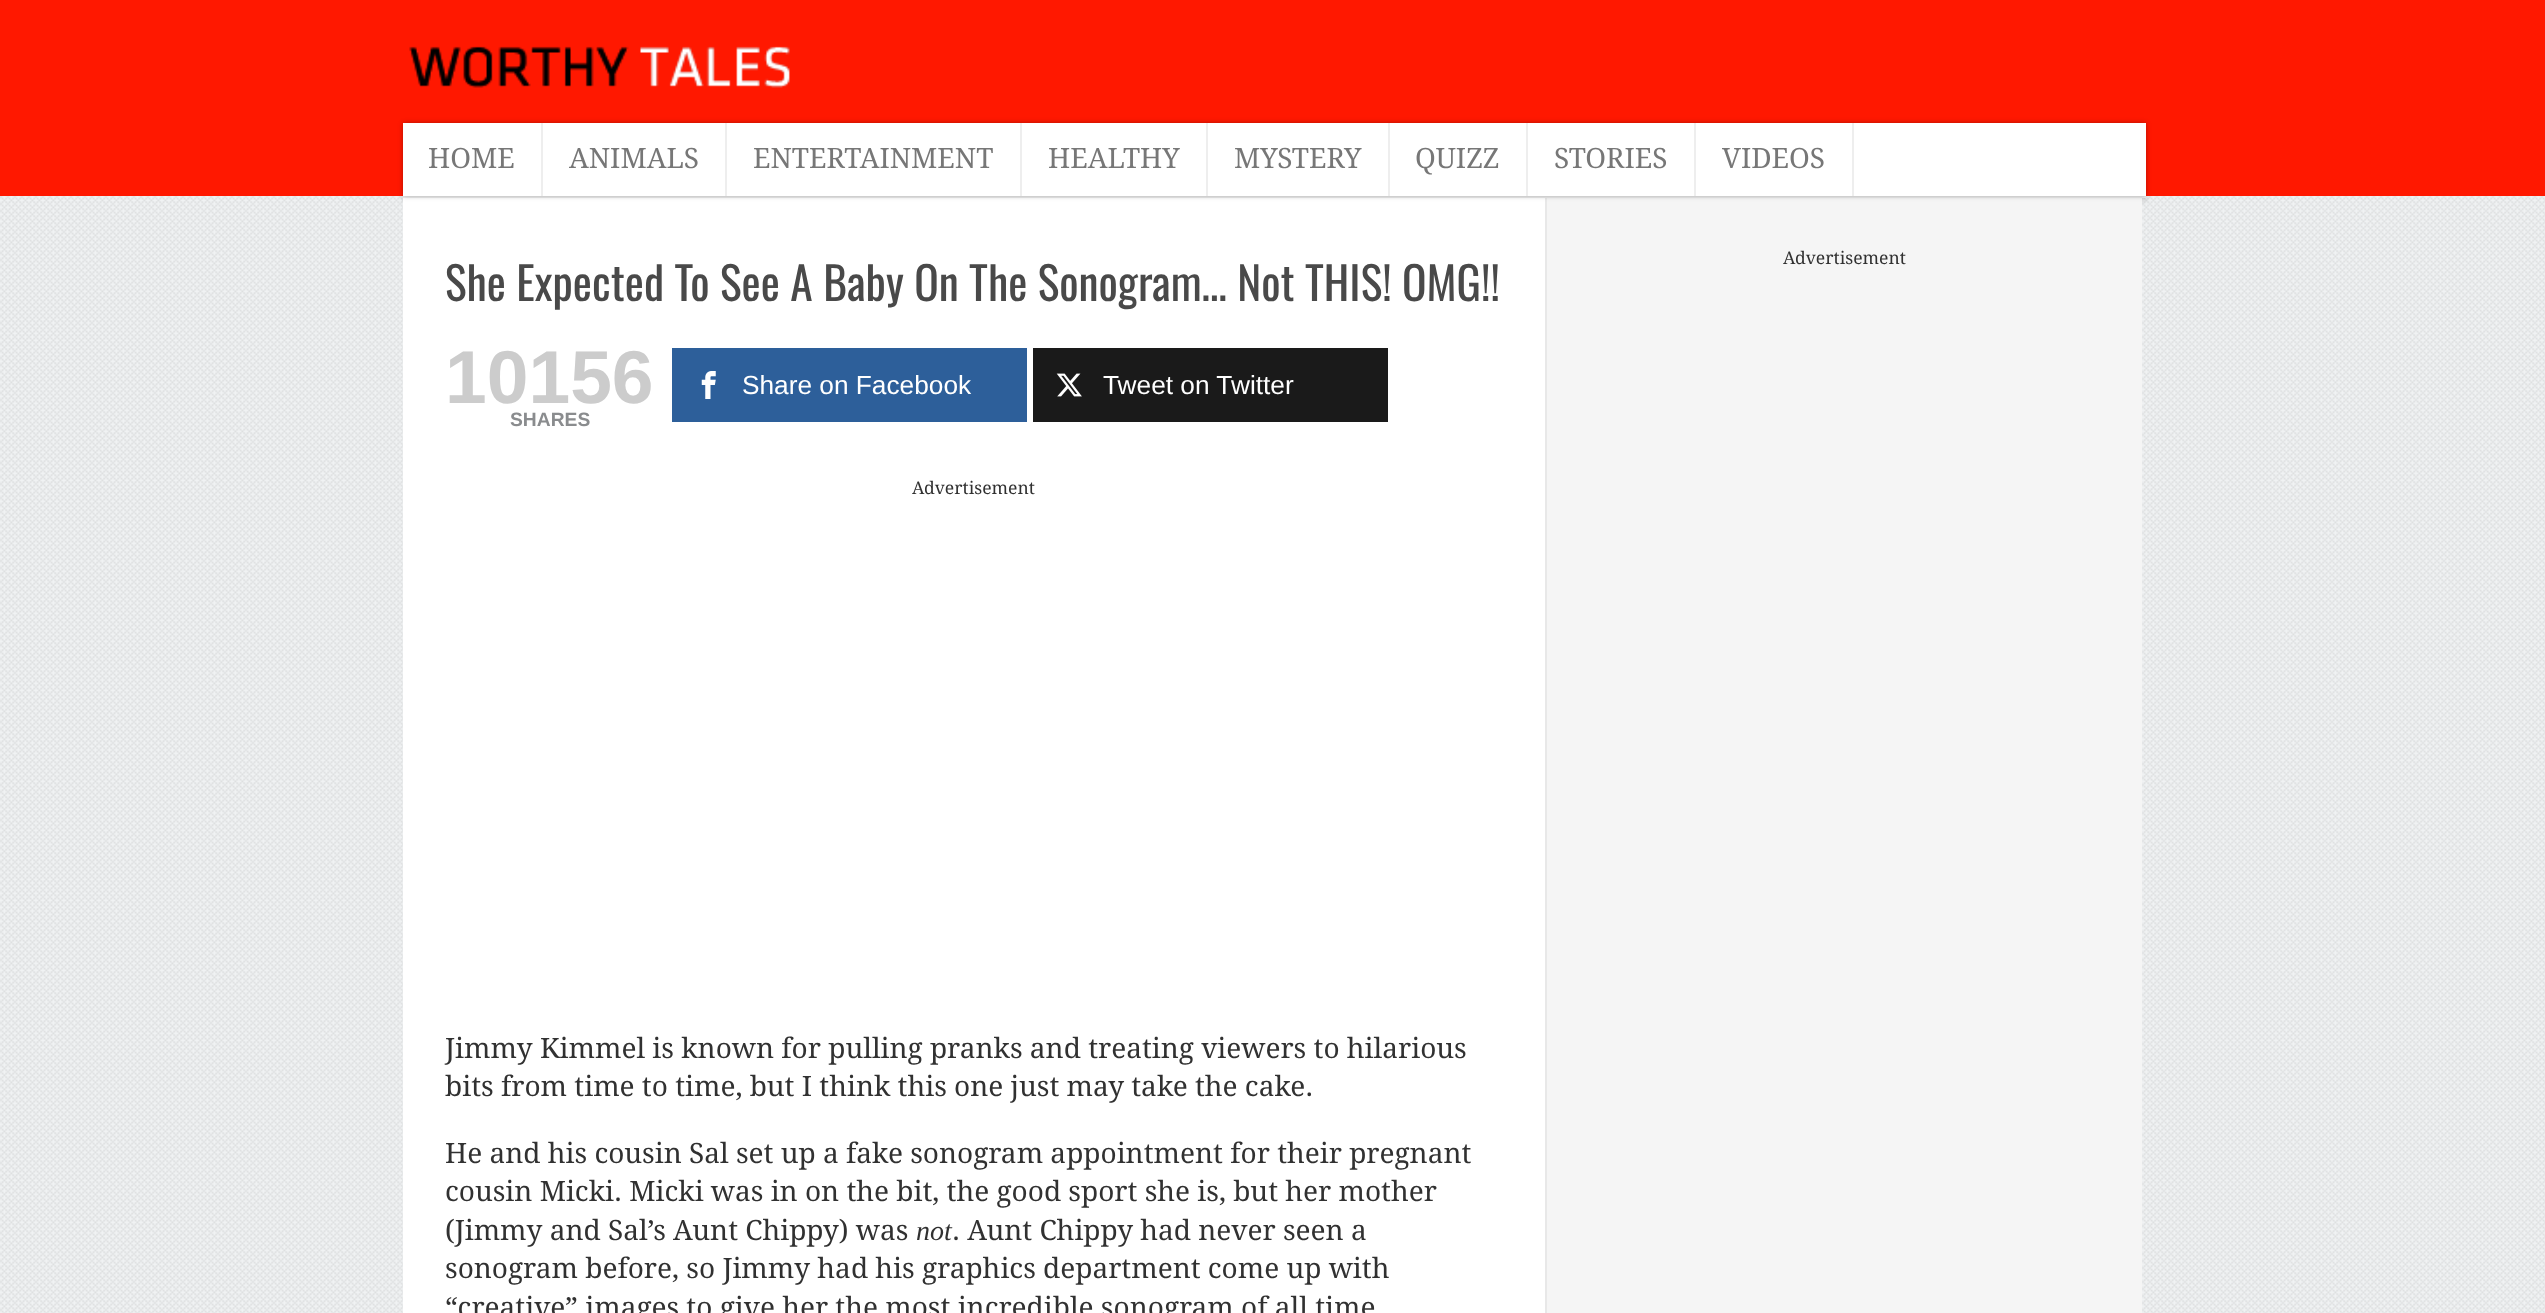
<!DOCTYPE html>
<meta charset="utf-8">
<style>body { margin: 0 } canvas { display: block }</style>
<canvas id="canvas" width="2545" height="1313"></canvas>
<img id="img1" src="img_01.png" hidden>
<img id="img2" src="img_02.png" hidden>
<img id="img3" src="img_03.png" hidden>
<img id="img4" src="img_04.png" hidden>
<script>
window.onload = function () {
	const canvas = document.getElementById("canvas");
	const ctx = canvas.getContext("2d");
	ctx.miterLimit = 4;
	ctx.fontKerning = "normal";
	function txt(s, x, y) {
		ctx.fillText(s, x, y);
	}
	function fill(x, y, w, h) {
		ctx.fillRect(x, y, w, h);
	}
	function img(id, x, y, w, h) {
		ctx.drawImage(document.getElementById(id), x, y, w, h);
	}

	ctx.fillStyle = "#F0F2F3";
	fill(0, 0, 2545, 1313);
	img("img1", 0, 196, 2545, 1117);
	ctx.fillStyle = "#FF1800";
	fill(0, 0, 2545, 196);
	img("img2", 409, 46, 381, 42);
	ctx.fillStyle = "rgba(0, 0, 0, 0.3)";
	ctx.filter = "blur(2.5px)";
	ctx.beginPath();
	ctx.rect(403, 198, 1743, 2);
	ctx.fill();
	ctx.filter = "none";
	ctx.fillStyle = "#EEEEEE";
	fill(403, 196, 1743, 2);
	ctx.fillStyle = "#F5F5F5";
	fill(1547, 198, 595, 1115);
	ctx.fillStyle = "#FFFFFF";
	fill(403, 198, 1142, 1115);
	ctx.fillStyle = "#E8E8E8";
	fill(1545, 198, 2, 1115);
	ctx.fillStyle = "rgba(0, 0, 0, 0.3)";
	ctx.filter = "blur(2.5px)";
	ctx.beginPath();
	ctx.rect(403, 123, 1743, 73);
	ctx.fill();
	ctx.filter = "none";
	ctx.fillStyle = "#FFFFFF";
	fill(403, 123, 1743, 73);
	ctx.fillStyle = "#EEEEEE";
	fill(541, 123, 2, 73);
	fill(725, 123, 2, 73);
	fill(1020, 123, 2, 73);
	fill(1206, 123, 2, 73);
	fill(1388, 123, 2, 73);
	fill(1526, 123, 2, 73);
	fill(1694, 123, 2, 73);
	fill(1852, 123, 2, 73);
	ctx.fillStyle = "#2D5F9A";
	fill(672, 348, 355, 74);
	img("img3", 701, 371, 15, 28);
	ctx.fillStyle = "#1A1A1A";
	fill(1033, 348, 355, 74);
	img("img4", 1056, 373, 26, 24);
	ctx.font = "28px Droid Serif";
	ctx.fillStyle = "#777777";
	txt("HOME", 428, 168);
	txt("ANIMALS", 569, 168);
	txt("ENTERTAINMENT", 753, 168);
	txt("HEALTHY", 1048, 168);
	txt("MYSTERY", 1234, 168);
	txt("QUIZZ", 1415, 168);
	txt("STORIES", 1554, 168);
	txt("VIDEOS", 1722, 168);
	ctx.font = "17.5px Droid Serif";
	ctx.fillStyle = "#313131";
	txt("Advertisement", 1783, 264);
	ctx.font = "45.5px Oswald";
	ctx.fillStyle = "#494949";
	txt("She Expected To See A Baby On The Sonogram… Not THIS! OMG!!", 445, 301);
	ctx.font = "bold 75px Liberation Sans";
	ctx.fillStyle = "#CCCCCC";
	txt("10156", 445, 403);
	ctx.font = "bold 19.25px Liberation Sans";
	ctx.fillStyle = "#8A8C8E";
	txt("SHARES", 510, 426);
	ctx.font = "26.25px Liberation Sans";
	ctx.fillStyle = "#FFFFFF";
	txt("Share on Facebook", 742, 394);
	txt("Tweet on Twitter", 1103, 394);
	ctx.font = "17.5px Droid Serif";
	ctx.fillStyle = "#313131";
	txt("Advertisement", 912, 494);
	ctx.font = "28px Droid Serif";
	txt("Jimmy Kimmel is known for pulling pranks and treating viewers to hilarious", 445, 1058);
	txt("bits from time to time, but I think this one just may take the cake.", 445, 1096);
	txt("He and his cousin Sal set up a fake sonogram appointment for their pregnant", 445, 1163);
	txt("cousin Micki. Micki was in on the bit, the good sport she is, but her mother", 445, 1201);
	txt("(Jimmy and Sal’s Aunt Chippy) was", 445, 1240);
	ctx.font = "italic 28px Liberation Serif";
	txt("not", 916, 1240);
	ctx.font = "28px Droid Serif";
	txt(". Aunt Chippy had never seen a", 952, 1240);
	txt("sonogram before, so Jimmy had his graphics department come up with", 445, 1278);
	txt("“creative” images to give her the most incredible sonogram of all time", 445, 1317);
};
</script>
